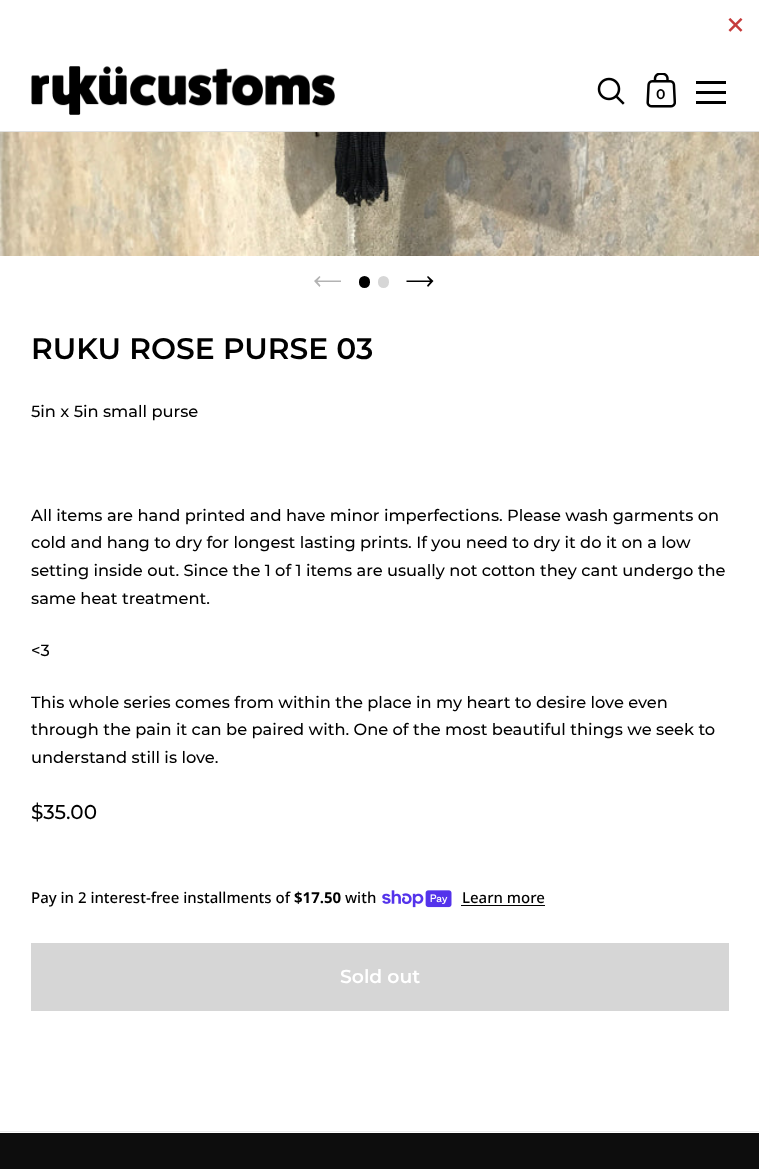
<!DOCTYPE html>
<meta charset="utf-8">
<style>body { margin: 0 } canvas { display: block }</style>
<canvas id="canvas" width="759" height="1169"></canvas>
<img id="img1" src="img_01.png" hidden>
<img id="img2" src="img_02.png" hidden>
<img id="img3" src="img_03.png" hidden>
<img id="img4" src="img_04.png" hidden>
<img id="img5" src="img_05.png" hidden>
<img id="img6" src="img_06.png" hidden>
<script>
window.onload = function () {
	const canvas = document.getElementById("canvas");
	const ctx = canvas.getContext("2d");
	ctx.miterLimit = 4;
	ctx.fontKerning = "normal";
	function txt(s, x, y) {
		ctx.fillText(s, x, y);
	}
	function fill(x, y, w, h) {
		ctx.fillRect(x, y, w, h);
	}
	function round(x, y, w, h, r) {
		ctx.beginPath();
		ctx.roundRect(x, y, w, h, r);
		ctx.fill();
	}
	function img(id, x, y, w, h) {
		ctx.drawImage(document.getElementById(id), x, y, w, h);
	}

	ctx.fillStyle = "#FFFFFF";
	fill(0, 0, 759, 1169);
	img("img1", 728, 18, 15, 14);
	ctx.fillStyle = "#E0E0E0";
	fill(0, 131, 759, 1);
	img("img2", 31, 66, 304, 49);
	img("img3", 597, 77, 28, 28);
	img("img4", 646, 73, 30, 35);
	ctx.fillStyle = "#000000";
	fill(696, 81, 30, 3);
	fill(696, 91, 30, 3);
	fill(696, 101, 30, 3);
	ctx.fillStyle = "#EBEBEB";
	fill(0, 1131, 759, 1);
	img("img5", 0, 132, 759, 124);
	ctx.fillStyle = "#B3B3B3";
	ctx.beginPath();
	ctx.moveTo(319.5, 287);
	ctx.lineTo(320.5, 285.5);
	ctx.lineTo(317.5, 282);
	ctx.lineTo(341, 282);
	ctx.lineTo(341, 280.5);
	ctx.lineTo(317.5, 280.5);
	ctx.lineTo(320.5, 277);
	ctx.lineTo(319.5, 276);
	ctx.lineTo(314, 281);
	ctx.closePath();
	ctx.fill();
	ctx.fillStyle = "#000000";
	round(359, 276, 11, 12, 5.5);
	ctx.fillStyle = "#D6D6D6";
	round(378, 276, 11, 12, 5.5);
	ctx.fillStyle = "#000000";
	ctx.beginPath();
	ctx.moveTo(428, 276);
	ctx.lineTo(427, 277);
	ctx.lineTo(430, 280.5);
	ctx.lineTo(406.5, 280.5);
	ctx.lineTo(406.5, 282);
	ctx.lineTo(430, 282);
	ctx.lineTo(427, 285.5);
	ctx.lineTo(428, 287);
	ctx.lineTo(433.5, 281);
	ctx.closePath();
	ctx.fill();
	img("img6", 382, 890, 70, 18);
	fill(461, 905, 84, 1);
	ctx.fillStyle = "#D6D6D6";
	fill(31, 943, 698, 68);
	ctx.fillStyle = "#0D0D0D";
	fill(0, 1133, 759, 36);
	ctx.font = "600 14px Montserrat";
	ctx.fillStyle = "#000000";
	txt("0", 656, 99);
	ctx.font = "600 29.75px Montserrat";
	txt("RUKU ROSE PURSE 03", 31, 359);
	ctx.font = "500 16.25px Montserrat";
	txt("5in x 5in small purse", 31, 417);
	txt("All items are hand printed and have minor imperfections. Please wash garments on", 31, 521);
	txt("cold and hang to dry for longest lasting prints. If you need to dry it do it on a low", 31, 548);
	txt("setting inside out. Since the 1 of 1 items are usually not cotton they cant undergo the", 31, 576);
	txt("same heat treatment.", 31, 604);
	txt("<3", 31, 656);
	txt("This whole series comes from within the place in my heart to desire love even", 31, 708);
	txt("through the pain it can be paired with. One of the most beautiful things we seek to", 31, 735);
	txt("understand still is love.", 31, 763);
	ctx.font = "500 20px Montserrat";
	txt("$35.00", 31, 819);
	ctx.font = "500 15px Noto Sans";
	txt("Pay in 2 interest-free installments of", 31, 903);
	ctx.font = "bold 15px Noto Sans";
	txt("$17.50", 294, 903);
	ctx.font = "500 15px Noto Sans";
	txt("with", 345, 903);
	txt("Learn more", 462, 903);
	ctx.font = "600 18.75px Montserrat";
	ctx.fillStyle = "#FFFFFF";
	txt("Sold out", 340, 983);
};
</script>
